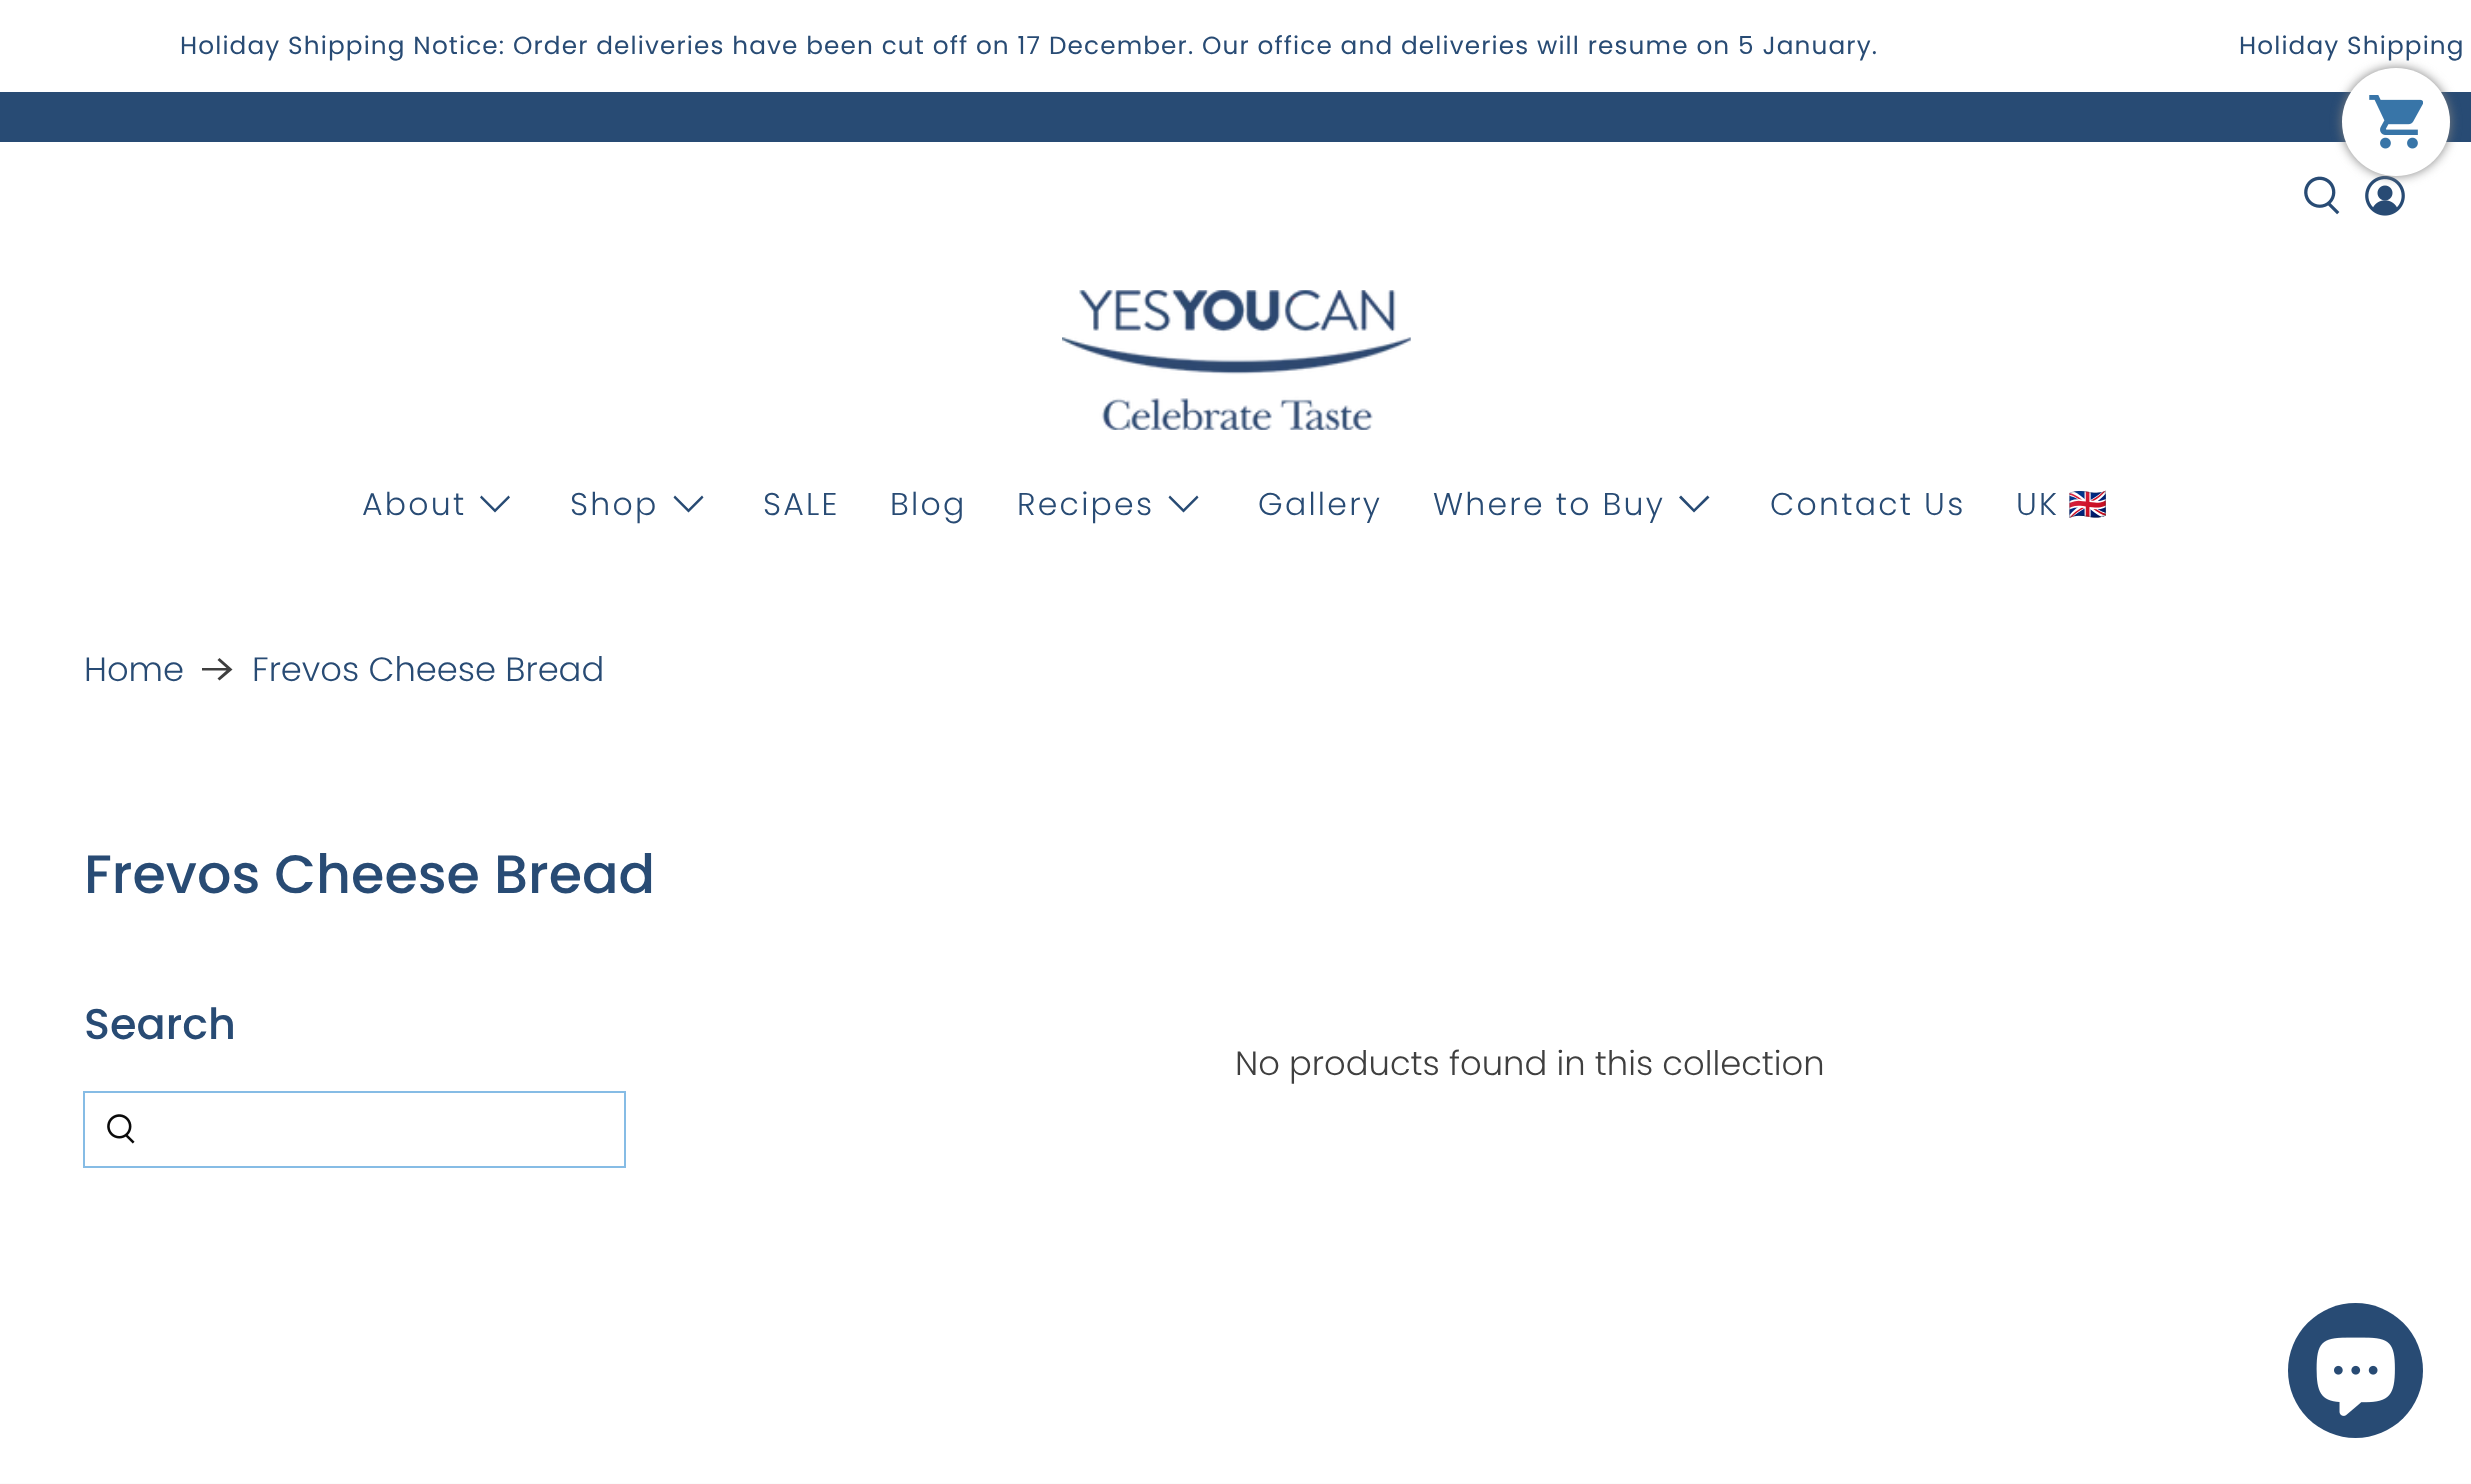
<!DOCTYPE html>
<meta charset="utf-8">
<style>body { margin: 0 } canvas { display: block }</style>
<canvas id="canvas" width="2471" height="1484"></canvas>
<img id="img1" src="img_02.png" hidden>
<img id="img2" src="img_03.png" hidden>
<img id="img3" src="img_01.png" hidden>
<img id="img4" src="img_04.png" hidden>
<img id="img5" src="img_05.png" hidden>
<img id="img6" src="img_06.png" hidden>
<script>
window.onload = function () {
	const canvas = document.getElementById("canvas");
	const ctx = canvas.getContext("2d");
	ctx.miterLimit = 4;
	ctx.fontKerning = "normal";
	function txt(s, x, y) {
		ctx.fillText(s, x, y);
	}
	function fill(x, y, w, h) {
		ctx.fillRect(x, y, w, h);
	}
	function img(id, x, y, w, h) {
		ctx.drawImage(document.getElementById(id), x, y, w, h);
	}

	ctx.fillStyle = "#FFFFFF";
	fill(0, 0, 2471, 1484);
	ctx.fillStyle = "#284B74";
	fill(0, 92, 2471, 50);
	img("img1", 2304, 176, 36, 39);
	img("img2", 2365, 176, 40, 40);
	ctx.fillStyle = "#808080";
	ctx.filter = "blur(5.5px)";
	ctx.beginPath();
	ctx.roundRect(2342, 68, 108, 108, 54);
	ctx.fill();
	ctx.filter = "none";
	ctx.fillStyle = "#FFFFFF";
	ctx.beginPath();
	ctx.arc(2396, 122, 54, 0, Math.PI * 2);
	ctx.fill();
	img("img3", 2369, 95, 54, 54);
	img("img4", 1062, 290, 349, 140);
	ctx.fillStyle = "#284B74";
	ctx.beginPath();
	ctx.moveTo(495, 512.5);
	ctx.lineTo(480, 497.5);
	ctx.lineTo(481.5, 495.5);
	ctx.lineTo(495, 509);
	ctx.lineTo(508.5, 495.5);
	ctx.lineTo(510, 497.5);
	ctx.closePath();
	ctx.fill();
	ctx.beginPath();
	ctx.moveTo(688.5, 512.5);
	ctx.lineTo(673.5, 497.5);
	ctx.lineTo(675, 495.5);
	ctx.lineTo(688.5, 509);
	ctx.lineTo(702, 495.5);
	ctx.lineTo(703.5, 497.5);
	ctx.closePath();
	ctx.fill();
	ctx.beginPath();
	ctx.moveTo(1183.5, 512.5);
	ctx.lineTo(1168.5, 497.5);
	ctx.lineTo(1170, 495.5);
	ctx.lineTo(1183.5, 509);
	ctx.lineTo(1197, 495.5);
	ctx.lineTo(1198.5, 497.5);
	ctx.closePath();
	ctx.fill();
	ctx.beginPath();
	ctx.moveTo(1694, 512.5);
	ctx.lineTo(1679, 497.5);
	ctx.lineTo(1681, 495.5);
	ctx.lineTo(1694, 509);
	ctx.lineTo(1707.5, 495.5);
	ctx.lineTo(1709.5, 497.5);
	ctx.closePath();
	ctx.fill();
	ctx.fillStyle = "#3F3F3F";
	ctx.beginPath();
	ctx.moveTo(219.5, 658);
	ctx.lineTo(217.5, 660);
	ctx.lineTo(226.5, 668);
	ctx.lineTo(202, 668);
	ctx.lineTo(202, 670.5);
	ctx.lineTo(226.5, 670.5);
	ctx.lineTo(217.5, 678.5);
	ctx.lineTo(219.5, 680.5);
	ctx.lineTo(232.5, 669.5);
	ctx.closePath();
	ctx.fill();
	ctx.strokeStyle = "#86BCE5";
	ctx.lineWidth = 2;
	ctx.strokeRect(84, 1092, 541, 75);
	img("img5", 107, 1114, 28, 30);
	ctx.fillStyle = "#284B74";
	ctx.beginPath();
	ctx.arc(2355.5, 1370.5, 67.5, 0, Math.PI * 2);
	ctx.fill();
	img("img6", 2316, 1337, 79, 79);
	ctx.fillStyle = "#FCFCFC";
	fill(0, 1483, 2471, 1);
	ctx.letterSpacing = "1.12px";
	ctx.font = "24.75px Poppins";
	ctx.fillStyle = "#284B74";
	txt("Holiday Shipping Notice: Order deliveries have been cut off on 17 December. Our office and deliveries will resume on 5 January.", 180, 54);
	txt("Holiday Shipping", 2239, 54);
	ctx.letterSpacing = "2.25px";
	ctx.font = "300 31.5px Poppins";
	txt("About", 362, 515);
	txt("Shop", 570, 515);
	txt("SALE", 763, 515);
	txt("Blog", 890, 515);
	txt("Recipes", 1017, 515);
	txt("Gallery", 1258, 515);
	txt("Where to Buy", 1433, 515);
	txt("Contact Us", 1770, 515);
	txt("UK", 2016, 515);
	ctx.font = "31.5px Noto Color Emoji";
	txt("🇬🇧", 2068, 515);
	ctx.letterSpacing = "0px";
	ctx.font = "300 33.75px Poppins";
	txt("Home", 84, 681);
	txt("Frevos Cheese Bread", 252, 681);
	ctx.font = "500 54px Poppins";
	txt("Frevos Cheese Bread", 84, 893);
	ctx.font = "500 43px Poppins";
	txt("Search", 84, 1039);
	ctx.font = "300 33.75px Poppins";
	ctx.fillStyle = "#3F3F3F";
	txt("No products found in this collection", 1235, 1075);
};
</script>
